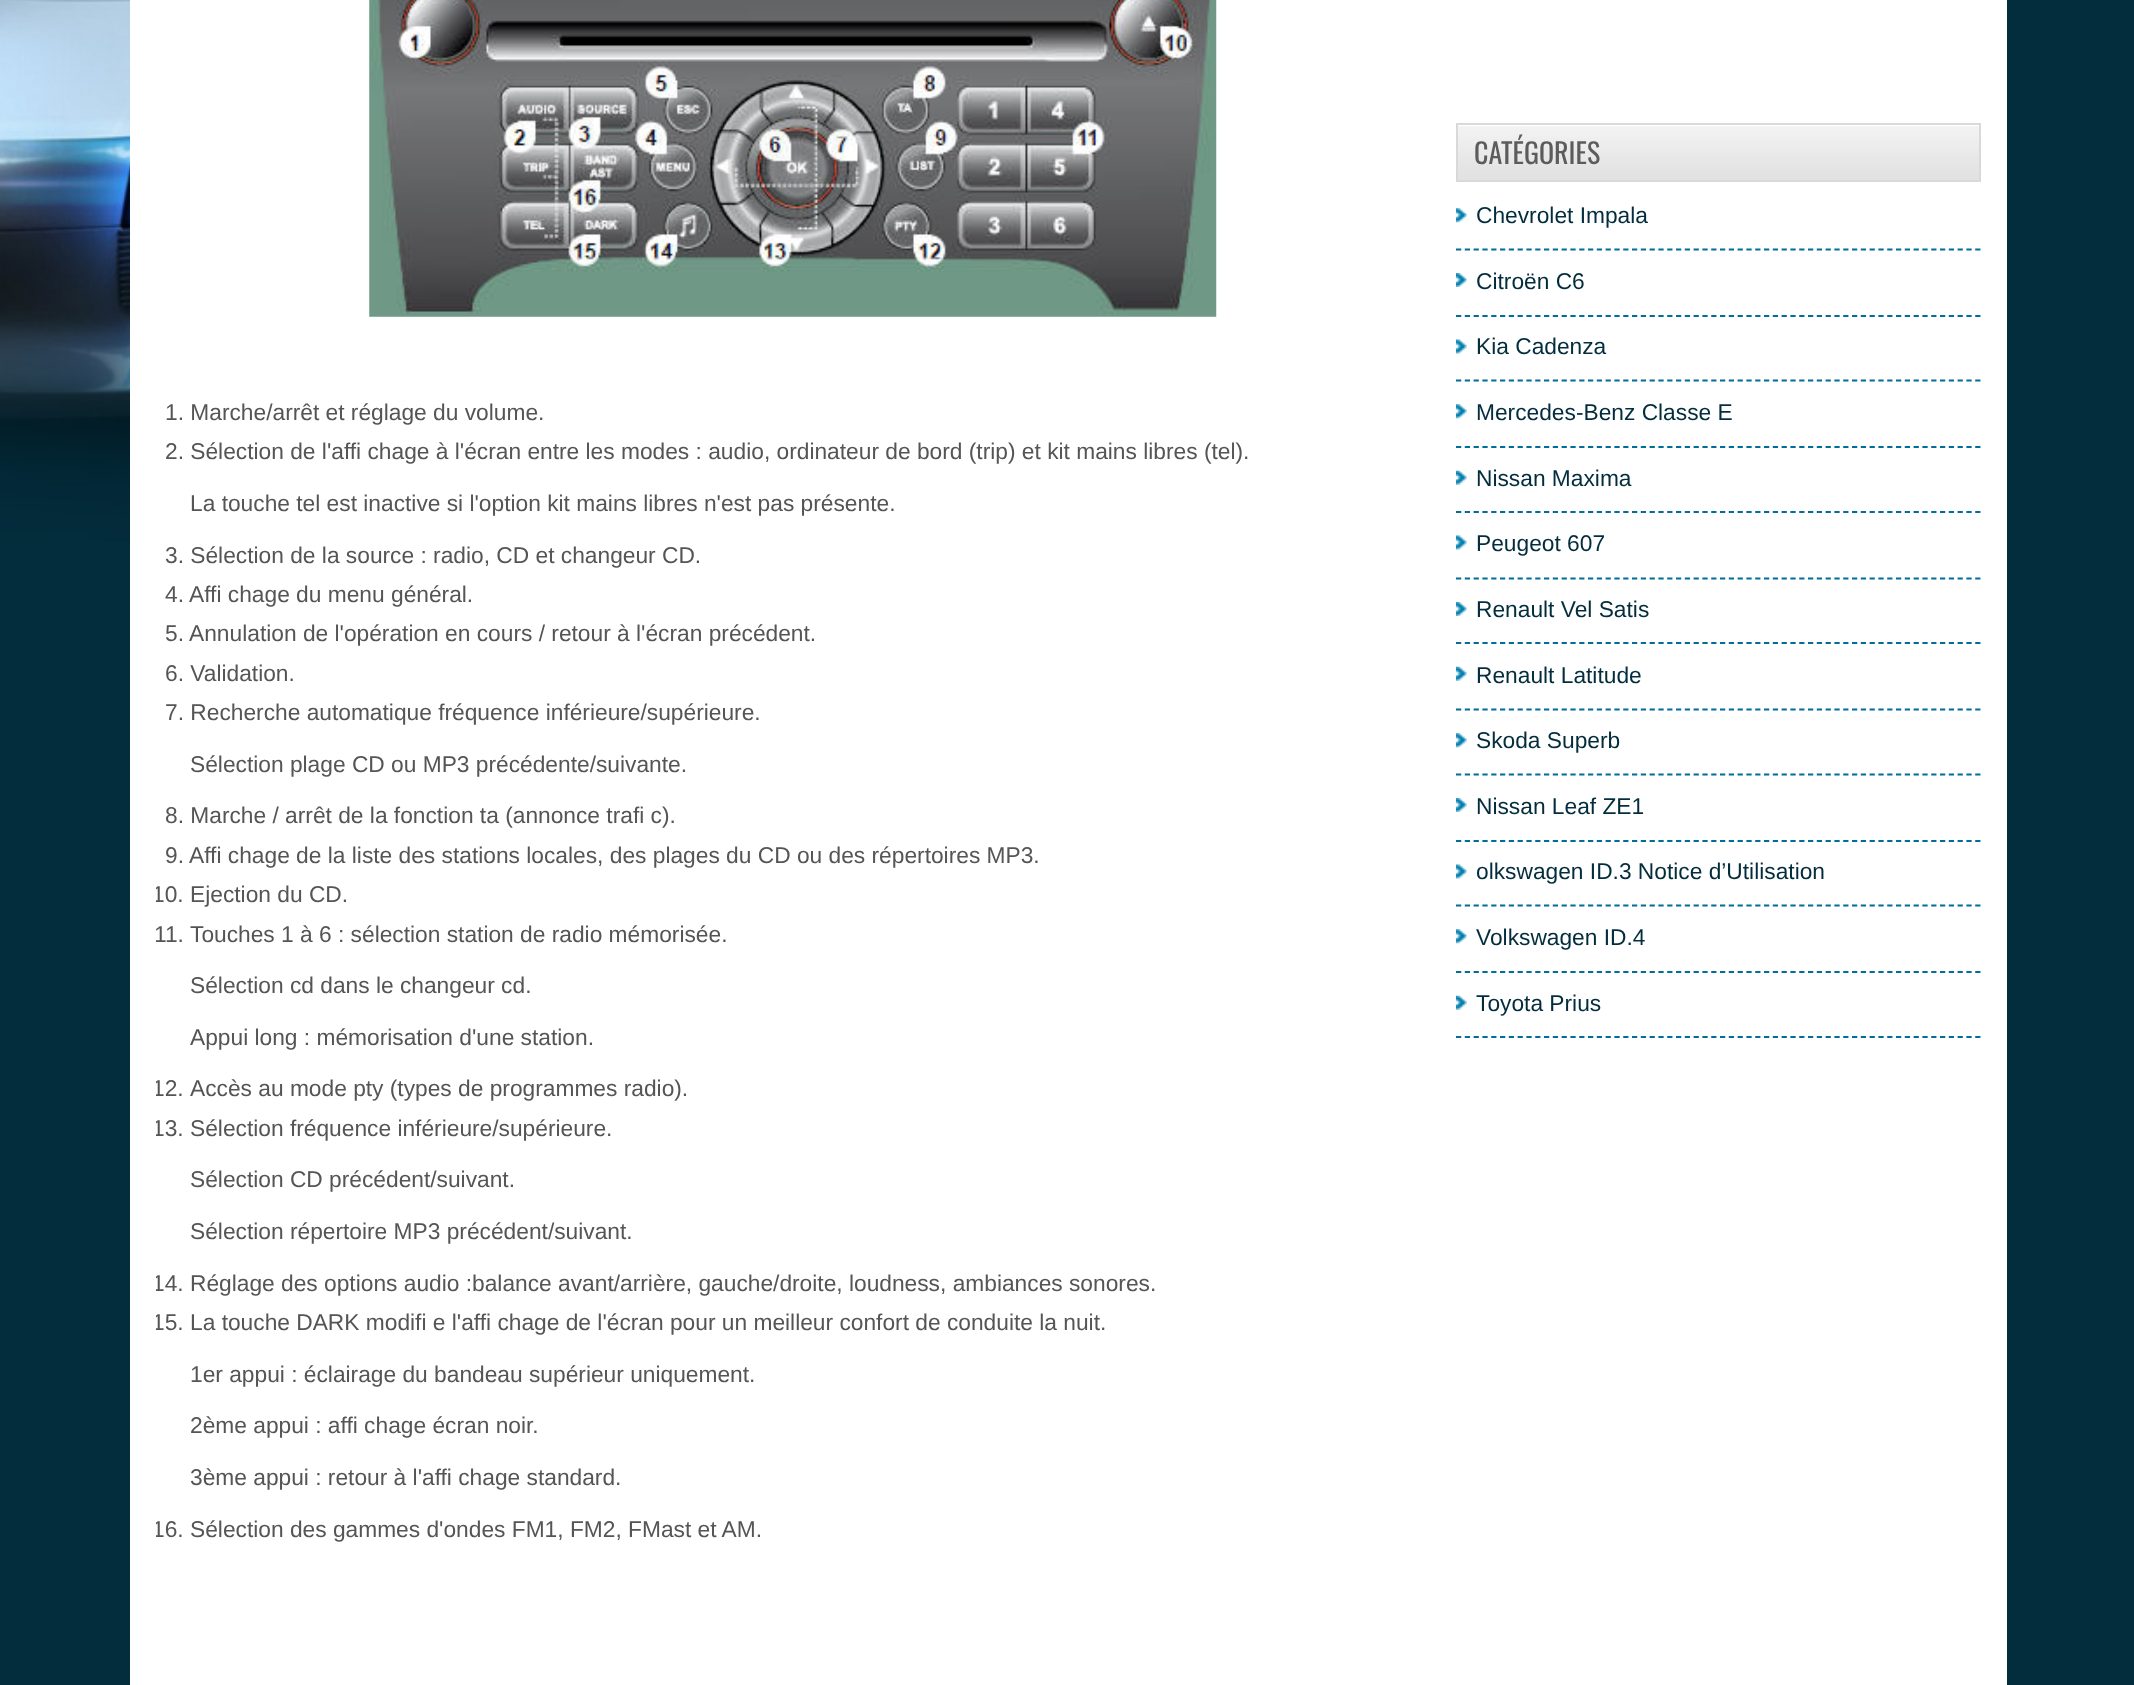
<!DOCTYPE html>
<meta charset="utf-8">
<style>body { margin: 0 } canvas { display: block }</style>
<canvas id="canvas" width="2134" height="1685"></canvas>
<img id="img1" src="img_01.png" hidden>
<img id="img2" src="img_02.png" hidden>
<img id="img3" src="img_03.png" hidden>
<img id="img4" src="img_04.png" hidden>
<img id="img5" src="img_05.png" hidden>
<img id="img6" src="img_06.png" hidden>
<img id="img7" src="img_07.png" hidden>
<script>
window.onload = function () {
	const canvas = document.getElementById("canvas");
	const ctx = canvas.getContext("2d");
	ctx.miterLimit = 4;
	ctx.fontKerning = "normal";
	function txt(s, x, y) {
		ctx.fillText(s, x, y);
	}
	function fill(x, y, w, h) {
		ctx.fillRect(x, y, w, h);
	}
	function img(id, x, y, w, h) {
		ctx.drawImage(document.getElementById(id), x, y, w, h);
	}

	ctx.fillStyle = "#032D3D";
	fill(0, 0, 2134, 1685);
	img("img1", 0, 0, 130, 542);
	ctx.fillStyle = "#FFFFFF";
	fill(130, 0, 1877, 1685);
	img("img2", 369, 0, 848, 317);
	img("img3", 1458, 126, 521, 54);
	ctx.strokeStyle = "#D9D9D9";
	ctx.lineWidth = 2;
	ctx.strokeRect(1457, 124, 523, 57);
	img("img4", 1456, 208, 11, 15);
	ctx.beginPath();
	ctx.moveTo(1456, 249.5);
	ctx.lineTo(1981, 249.5);
	ctx.strokeStyle = "#006E98";
	ctx.lineWidth = 1.8;
	ctx.setLineDash([5.25, 3.55]);
	ctx.stroke();
	img("img5", 1456, 273, 11, 14);
	ctx.beginPath();
	ctx.moveTo(1456, 316);
	ctx.lineTo(1981, 316);
	ctx.stroke();
	img("img6", 1456, 339, 11, 15);
	ctx.beginPath();
	ctx.moveTo(1456, 380.5);
	ctx.lineTo(1981, 380.5);
	ctx.stroke();
	img("img4", 1456, 404, 11, 15);
	ctx.beginPath();
	ctx.moveTo(1456, 447);
	ctx.lineTo(1981, 447);
	ctx.stroke();
	img("img7", 1456, 470, 11, 15);
	ctx.beginPath();
	ctx.moveTo(1456, 512);
	ctx.lineTo(1981, 512);
	ctx.stroke();
	img("img6", 1456, 535, 11, 15);
	ctx.beginPath();
	ctx.moveTo(1456, 578.5);
	ctx.lineTo(1981, 578.5);
	ctx.stroke();
	img("img5", 1456, 602, 11, 14);
	ctx.beginPath();
	ctx.moveTo(1456, 643);
	ctx.lineTo(1981, 643);
	ctx.stroke();
	img("img7", 1456, 666, 11, 15);
	ctx.beginPath();
	ctx.moveTo(1456, 709.5);
	ctx.lineTo(1981, 709.5);
	ctx.stroke();
	img("img4", 1456, 733, 11, 15);
	ctx.beginPath();
	ctx.moveTo(1456, 774.5);
	ctx.lineTo(1981, 774.5);
	ctx.stroke();
	img("img5", 1456, 798, 11, 14);
	ctx.beginPath();
	ctx.moveTo(1456, 841);
	ctx.lineTo(1981, 841);
	ctx.stroke();
	img("img6", 1456, 864, 11, 15);
	ctx.beginPath();
	ctx.moveTo(1456, 905.5);
	ctx.lineTo(1981, 905.5);
	ctx.stroke();
	img("img4", 1456, 929, 11, 15);
	ctx.beginPath();
	ctx.moveTo(1456, 972);
	ctx.lineTo(1981, 972);
	ctx.stroke();
	img("img7", 1456, 995, 11, 15);
	ctx.beginPath();
	ctx.moveTo(1456, 1037);
	ctx.lineTo(1981, 1037);
	ctx.stroke();
	ctx.font = "22.75px Liberation Sans";
	ctx.fillStyle = "#555555";
	txt("1. Marche/arrêt et réglage du volume.", 165, 420);
	txt("2. Sélection de l'affi chage à l'écran entre les modes : audio, ordinateur de bord (trip) et kit mains libres (tel).", 165, 459);
	txt("La touche tel est inactive si l'option kit mains libres n'est pas présente.", 190, 511);
	txt("3. Sélection de la source : radio, CD et changeur CD.", 165, 563);
	txt("4. Affi chage du menu général.", 165, 602);
	txt("5. Annulation de l'opération en cours / retour à l'écran précédent.", 165, 641);
	txt("6. Validation.", 165, 681);
	txt("7. Recherche automatique fréquence inférieure/supérieure.", 165, 720);
	txt("Sélection plage CD ou MP3 précédente/suivante.", 190, 772);
	txt("8. Marche / arrêt de la fonction ta (annonce trafi c).", 165, 823);
	txt("9. Affi chage de la liste des stations locales, des plages du CD ou des répertoires MP3.", 165, 863);
	ctx.save();
	ctx.beginPath();
	ctx.rect(156, 0, 1274, 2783);
	ctx.clip();
	txt("10.", 152, 902);
	ctx.restore();
	txt("Ejection du CD.", 190, 902);
	ctx.save();
	ctx.beginPath();
	ctx.rect(156, 0, 1274, 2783);
	ctx.clip();
	txt("11.", 154, 942);
	ctx.restore();
	txt("Touches 1 à 6 : sélection station de radio mémorisée.", 190, 942);
	txt("Sélection cd dans le changeur cd.", 190, 993);
	txt("Appui long : mémorisation d'une station.", 190, 1045);
	ctx.save();
	ctx.beginPath();
	ctx.rect(156, 0, 1274, 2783);
	ctx.clip();
	txt("12.", 152, 1096);
	ctx.restore();
	txt("Accès au mode pty (types de programmes radio).", 190, 1096);
	ctx.save();
	ctx.beginPath();
	ctx.rect(156, 0, 1274, 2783);
	ctx.clip();
	txt("13.", 152, 1136);
	ctx.restore();
	txt("Sélection fréquence inférieure/supérieure.", 190, 1136);
	txt("Sélection CD précédent/suivant.", 190, 1187);
	txt("Sélection répertoire MP3 précédent/suivant.", 190, 1239);
	ctx.save();
	ctx.beginPath();
	ctx.rect(156, 0, 1274, 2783);
	ctx.clip();
	txt("14.", 152, 1291);
	ctx.restore();
	txt("Réglage des options audio :balance avant/arrière, gauche/droite, loudness, ambiances sonores.", 190, 1291);
	ctx.save();
	ctx.beginPath();
	ctx.rect(156, 0, 1274, 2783);
	ctx.clip();
	txt("15.", 152, 1330);
	ctx.restore();
	txt("La touche DARK modifi e l'affi chage de l'écran pour un meilleur confort de conduite la nuit.", 190, 1330);
	txt("1er appui : éclairage du bandeau supérieur uniquement.", 190, 1382);
	txt("2ème appui : affi chage écran noir.", 190, 1433);
	txt("3ème appui : retour à l'affi chage standard.", 190, 1485);
	ctx.save();
	ctx.beginPath();
	ctx.rect(156, 0, 1274, 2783);
	ctx.clip();
	txt("16.", 152, 1537);
	ctx.restore();
	txt("Sélection des gammes d'ondes FM1, FM2, FMast et AM.", 190, 1537);
	ctx.font = "28px Oswald";
	ctx.fillStyle = "#5C5C5C";
	txt("CATÉGORIES", 1474, 164);
	ctx.font = "22.75px Liberation Sans";
	ctx.fillStyle = "#032D3D";
	txt("Chevrolet Impala", 1476, 223);
	txt("Citroën C6", 1476, 289);
	txt("Kia Cadenza", 1476, 354);
	txt("Mercedes-Benz Classe E", 1476, 420);
	txt("Nissan Maxima", 1476, 486);
	txt("Peugeot 607", 1476, 551);
	txt("Renault Vel Satis", 1476, 617);
	txt("Renault Latitude", 1476, 683);
	txt("Skoda Superb", 1476, 748);
	txt("Nissan Leaf ZE1", 1476, 814);
	txt("olkswagen ID.3 Notice d’Utilisation", 1476, 879);
	txt("Volkswagen ID.4", 1476, 945);
	txt("Toyota Prius", 1476, 1011);
};
</script>
